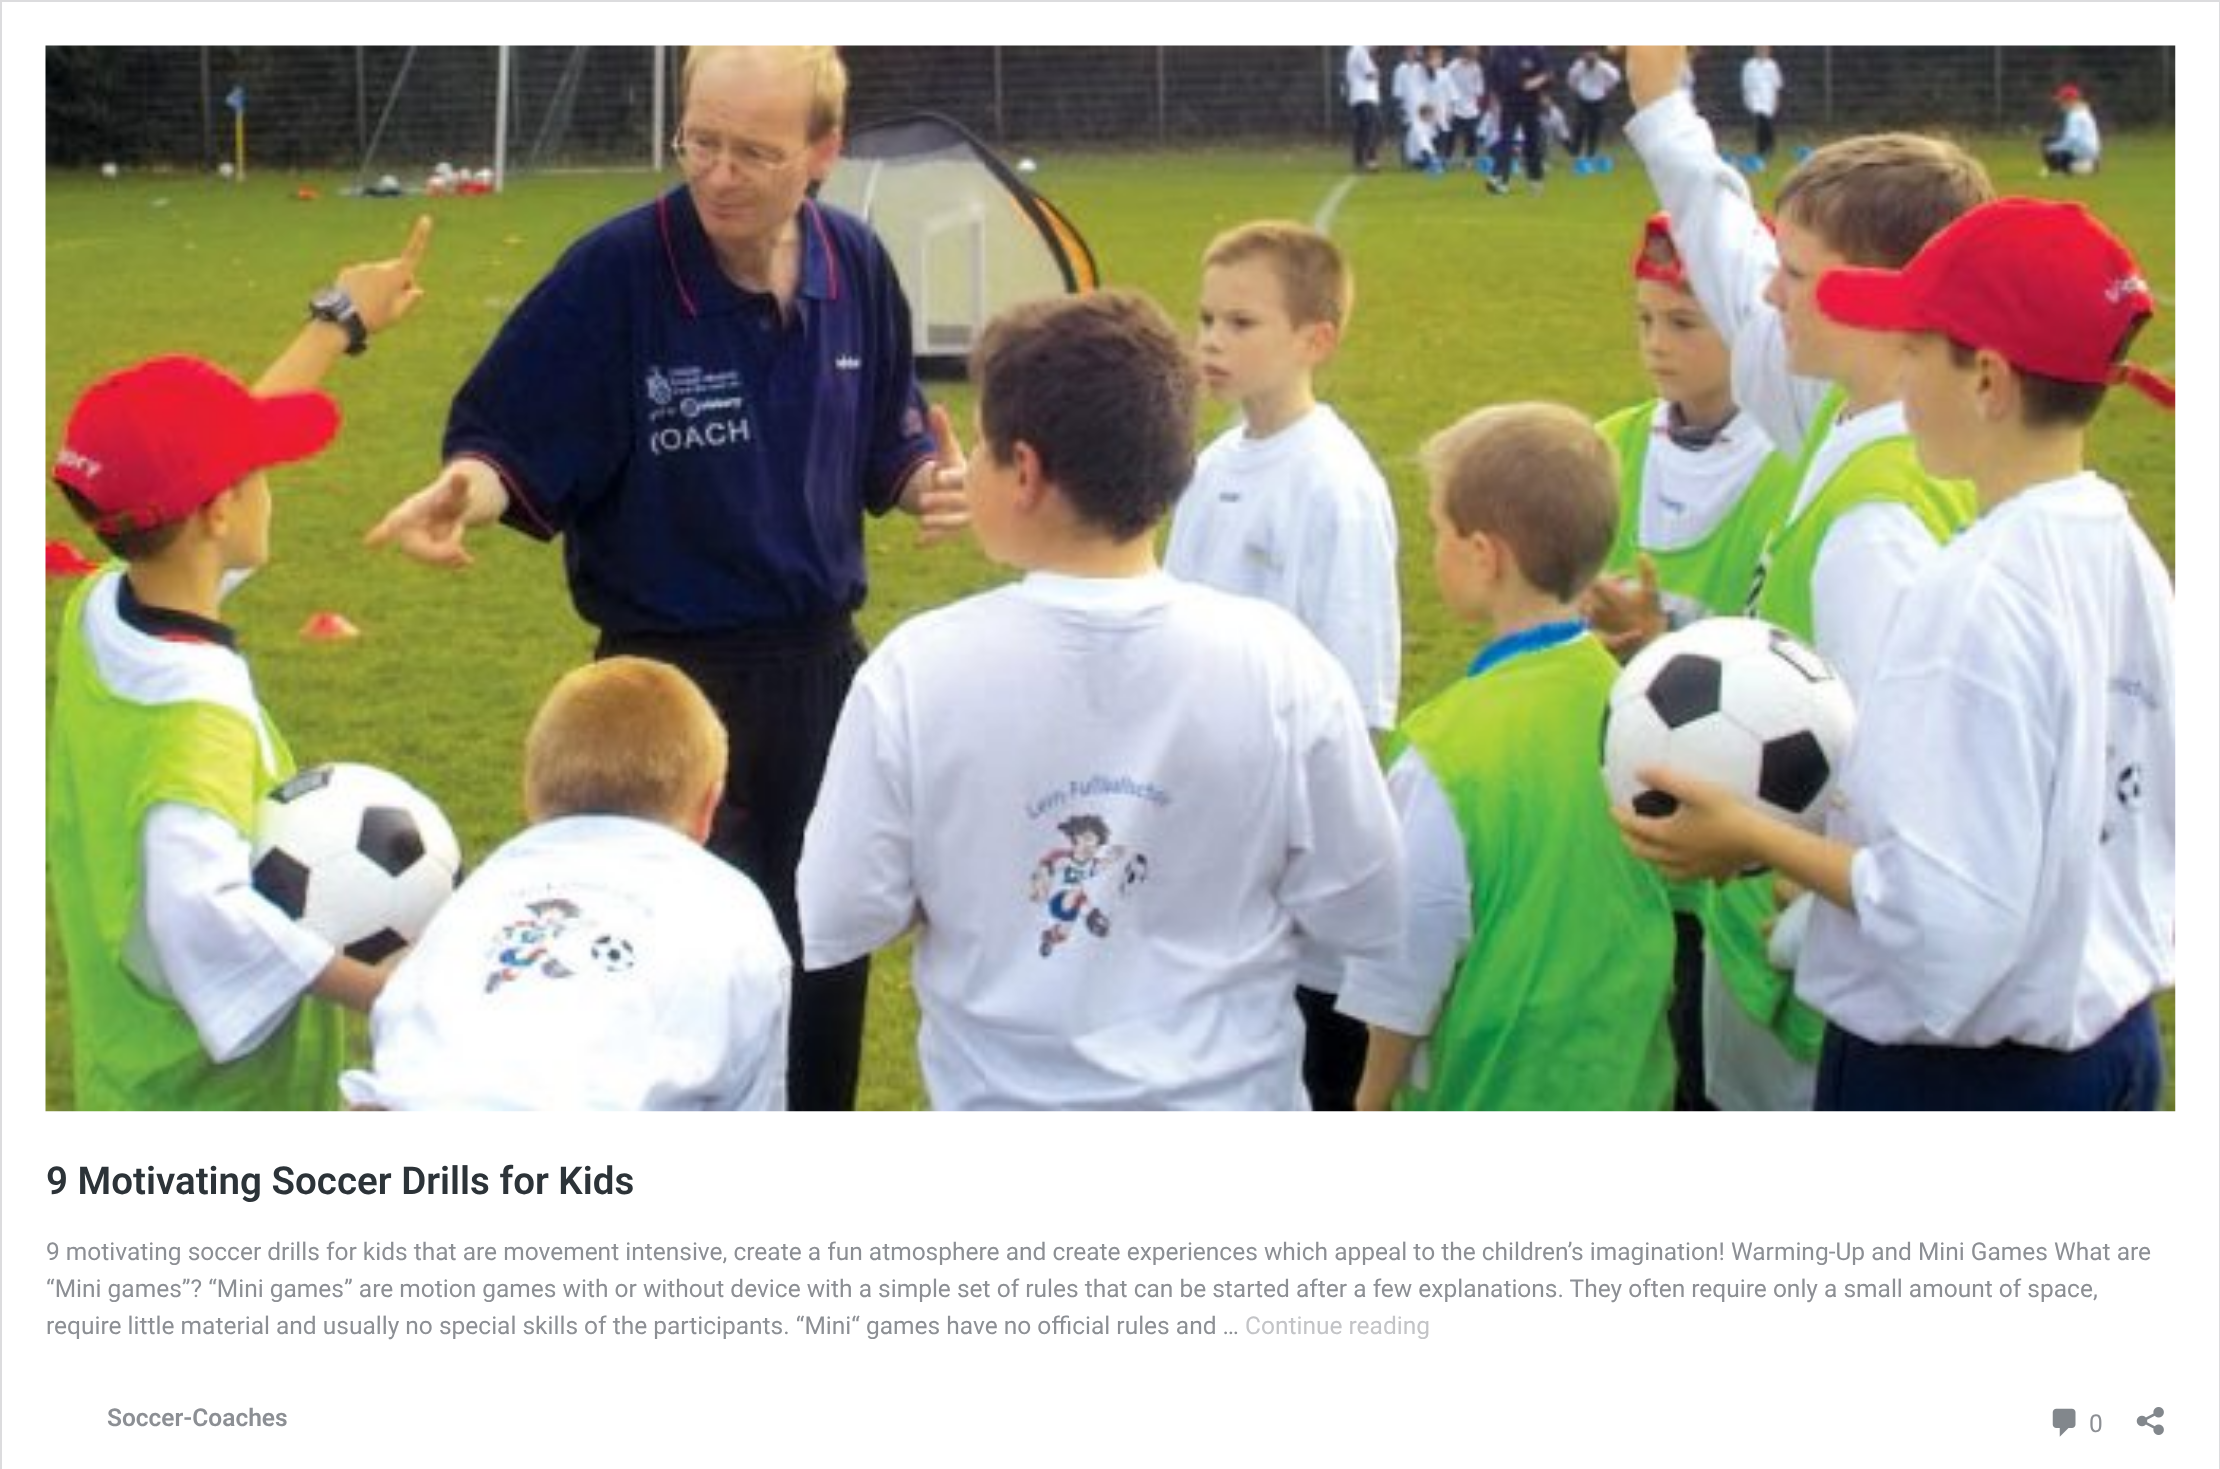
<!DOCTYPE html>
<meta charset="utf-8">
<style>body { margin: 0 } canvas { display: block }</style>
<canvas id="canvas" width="2220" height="1469"></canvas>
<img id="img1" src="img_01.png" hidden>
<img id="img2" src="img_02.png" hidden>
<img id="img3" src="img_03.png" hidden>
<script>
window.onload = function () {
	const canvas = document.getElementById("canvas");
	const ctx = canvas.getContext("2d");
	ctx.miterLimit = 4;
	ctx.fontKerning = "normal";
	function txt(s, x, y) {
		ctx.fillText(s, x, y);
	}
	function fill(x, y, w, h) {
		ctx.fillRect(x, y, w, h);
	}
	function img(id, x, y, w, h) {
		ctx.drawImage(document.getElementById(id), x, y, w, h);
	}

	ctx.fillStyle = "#FFFFFF";
	fill(0, 0, 2220, 1469);
	ctx.strokeStyle = "#DCDCDE";
	ctx.lineWidth = 2;
	ctx.strokeRect(1, 1, 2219, 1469);
	img("img1", 45, 45, 2131, 1067);
	img("img2", 2052, 1408, 24, 29);
	img("img3", 2136, 1407, 28, 28);
	ctx.font = "600 38.5px Roboto";
	ctx.fillStyle = "#2C3338";
	txt("9 Motivating Soccer Drills for Kids", 46, 1194);
	ctx.font = "24.5px Roboto";
	ctx.fillStyle = "#8C8F94";
	txt("9 motivating soccer drills for kids that are movement intensive, create a fun atmosphere and create experiences which appeal to the children’s imagination! Warming-Up and Mini Games What are", 46, 1260);
	txt("“Mini games”? “Mini games” are motion games with or without device with a simple set of rules that can be started after a few explanations. They often require only a small amount of space,", 46, 1297);
	txt("require little material and usually no special skills of the participants. “Mini“ games have no official rules and …", 46, 1334);
	ctx.fillStyle = "#C3C4C7";
	txt("Continue reading", 1245, 1334);
	ctx.font = "600 24.5px Roboto";
	ctx.fillStyle = "#8C8F94";
	txt("Soccer-Coaches", 107, 1426);
	ctx.font = "24.5px Roboto";
	txt("0", 2089, 1432);
};
</script>
